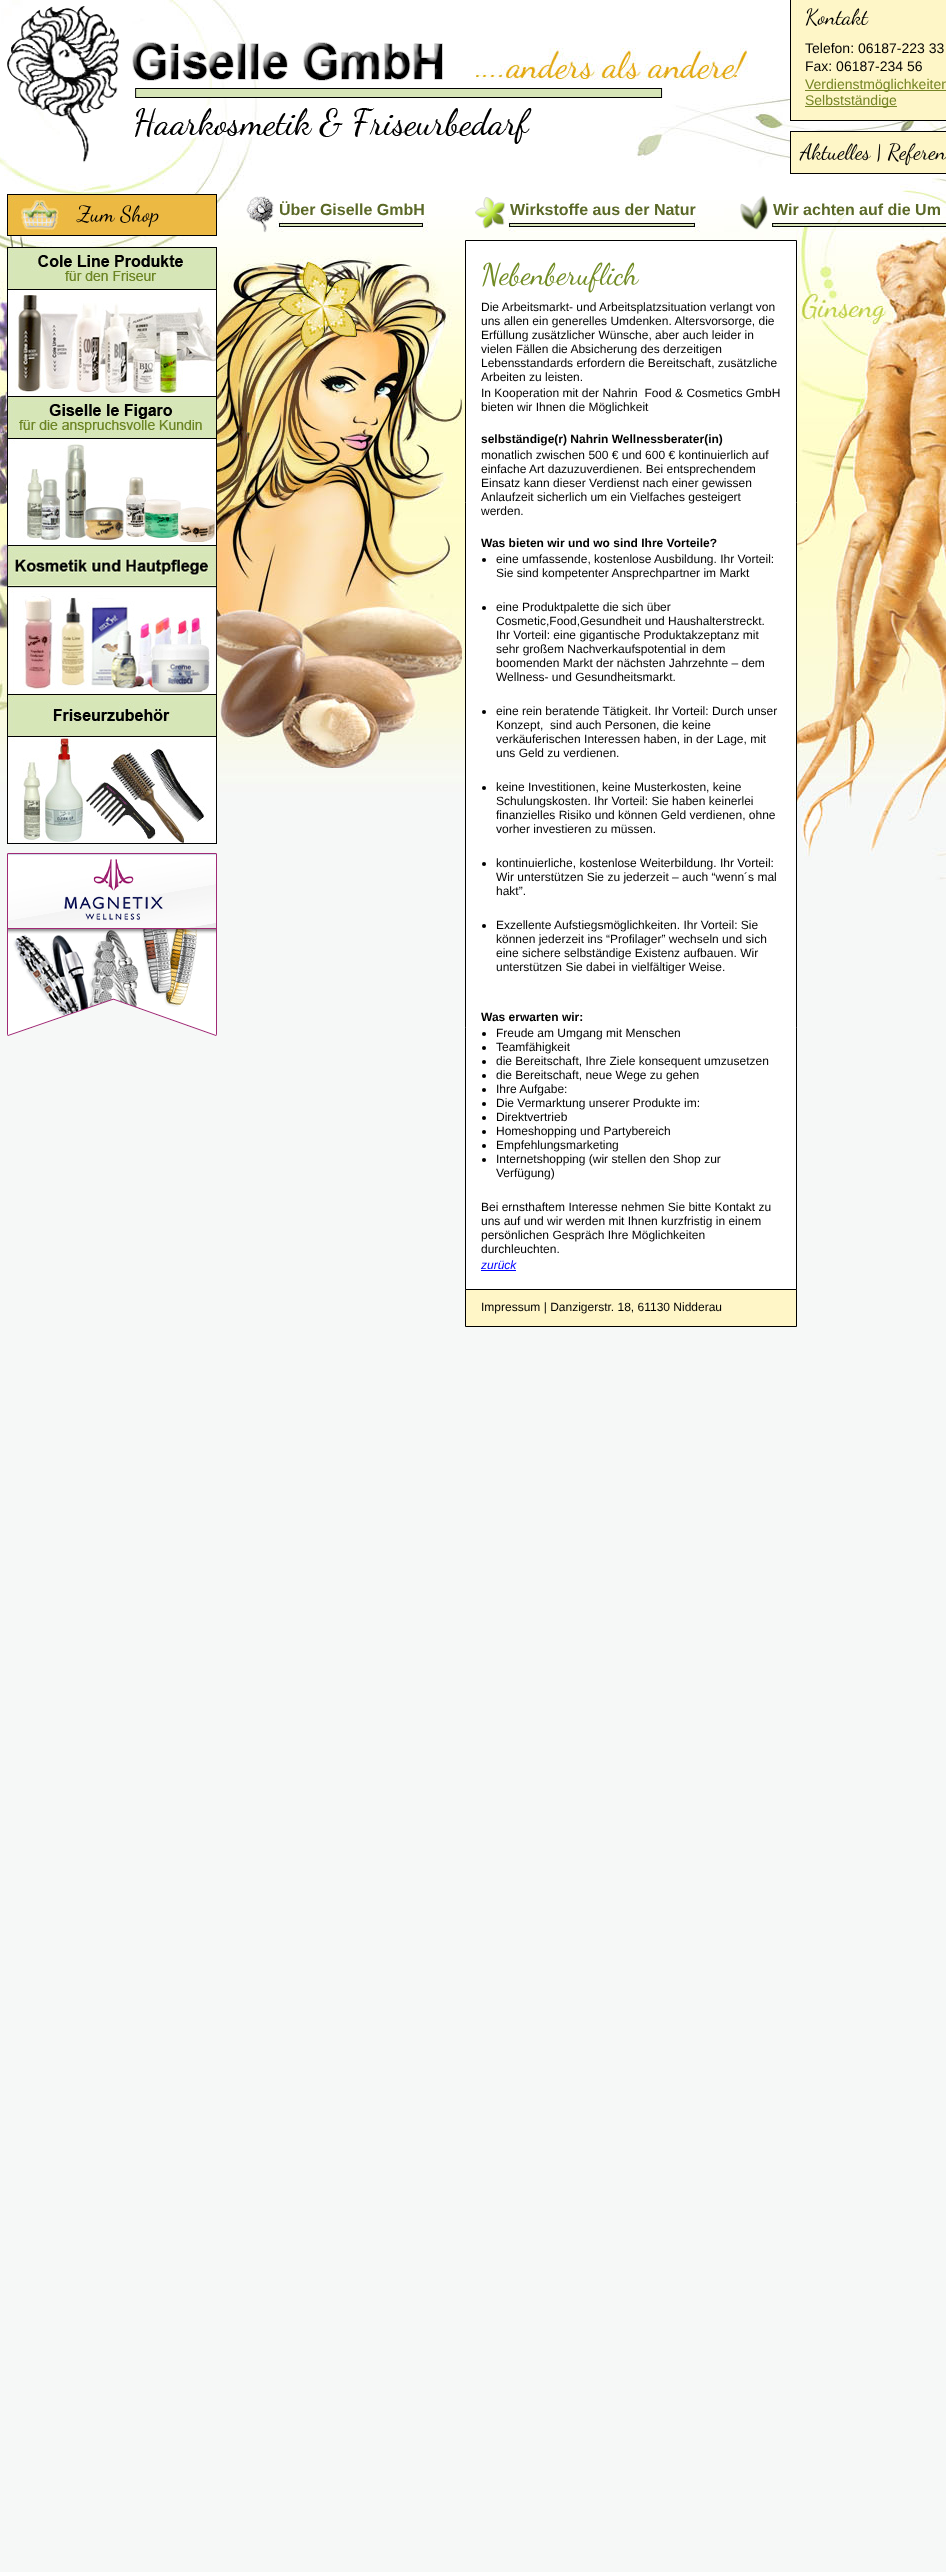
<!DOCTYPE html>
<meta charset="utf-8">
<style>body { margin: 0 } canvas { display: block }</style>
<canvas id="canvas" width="946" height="2572"></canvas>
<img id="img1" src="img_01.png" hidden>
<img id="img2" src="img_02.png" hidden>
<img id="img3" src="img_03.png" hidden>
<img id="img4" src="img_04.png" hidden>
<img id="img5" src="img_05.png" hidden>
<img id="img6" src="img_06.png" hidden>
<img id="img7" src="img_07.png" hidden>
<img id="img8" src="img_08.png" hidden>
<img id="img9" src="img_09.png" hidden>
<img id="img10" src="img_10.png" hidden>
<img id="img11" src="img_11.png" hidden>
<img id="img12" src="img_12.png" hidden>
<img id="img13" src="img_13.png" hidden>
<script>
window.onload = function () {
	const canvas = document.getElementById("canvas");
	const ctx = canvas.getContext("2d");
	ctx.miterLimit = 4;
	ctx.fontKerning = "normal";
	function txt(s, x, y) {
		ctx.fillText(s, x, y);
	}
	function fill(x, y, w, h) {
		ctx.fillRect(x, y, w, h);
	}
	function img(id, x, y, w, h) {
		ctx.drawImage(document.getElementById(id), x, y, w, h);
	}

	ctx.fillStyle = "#F6F8F7";
	fill(0, 0, 946, 2572);
	img("img1", 0, 0, 946, 880);
	img("img2", 7, 6, 656, 157);
	img("img3", 790, 0, 156, 120);
	ctx.fillStyle = "#000000";
	fill(790, 120, 156, 1);
	ctx.fillStyle = "#758425";
	fill(805, 90, 141, 1);
	fill(805, 106, 92, 1);
	img("img4", 790, 131, 156, 43);
	img("img5", 7, 194, 210, 42);
	img("img6", 7, 247, 210, 149);
	img("img7", 7, 396, 210, 149);
	img("img8", 7, 545, 210, 149);
	img("img9", 7, 694, 210, 150);
	img("img10", 7, 853, 210, 183);
	img("img11", 246, 196, 28, 37);
	img("img12", 475, 197, 30, 32);
	img("img13", 740, 195, 28, 35);
	ctx.fillStyle = "#FFFFFF";
	ctx.beginPath();
	ctx.rect(465.5, 240.5, 331, 1049);
	ctx.fill();
	ctx.strokeStyle = "#000000";
	ctx.stroke();
	ctx.fillStyle = "#000000";
	ctx.beginPath();
	ctx.arc(484, 560, 2, 0, Math.PI * 2);
	ctx.fill();
	ctx.beginPath();
	ctx.arc(484, 608, 2, 0, Math.PI * 2);
	ctx.fill();
	ctx.beginPath();
	ctx.arc(484, 712, 2, 0, Math.PI * 2);
	ctx.fill();
	ctx.beginPath();
	ctx.arc(484, 788, 2, 0, Math.PI * 2);
	ctx.fill();
	ctx.beginPath();
	ctx.arc(484, 864, 2, 0, Math.PI * 2);
	ctx.fill();
	ctx.beginPath();
	ctx.arc(484, 926, 2, 0, Math.PI * 2);
	ctx.fill();
	ctx.beginPath();
	ctx.arc(484, 1034, 2, 0, Math.PI * 2);
	ctx.fill();
	ctx.beginPath();
	ctx.arc(484, 1048, 2, 0, Math.PI * 2);
	ctx.fill();
	ctx.beginPath();
	ctx.arc(484, 1062, 2, 0, Math.PI * 2);
	ctx.fill();
	ctx.beginPath();
	ctx.arc(484, 1076, 2, 0, Math.PI * 2);
	ctx.fill();
	ctx.beginPath();
	ctx.arc(484, 1090, 2, 0, Math.PI * 2);
	ctx.fill();
	ctx.beginPath();
	ctx.arc(484, 1104, 2, 0, Math.PI * 2);
	ctx.fill();
	ctx.beginPath();
	ctx.arc(484, 1118, 2, 0, Math.PI * 2);
	ctx.fill();
	ctx.beginPath();
	ctx.arc(484, 1132, 2, 0, Math.PI * 2);
	ctx.fill();
	ctx.beginPath();
	ctx.arc(484, 1146, 2, 0, Math.PI * 2);
	ctx.fill();
	ctx.beginPath();
	ctx.arc(484, 1160, 2, 0, Math.PI * 2);
	ctx.fill();
	ctx.fillStyle = "#0000FF";
	fill(481, 1270, 35, 1);
	ctx.fillStyle = "#FFF6C7";
	ctx.beginPath();
	ctx.rect(465.5, 1289.5, 331, 37);
	ctx.fill();
	ctx.stroke();
	ctx.font = "22px Dancing Script";
	ctx.fillStyle = "#000000";
	txt("Kontakt", 805, 24);
	ctx.font = "14px Liberation Sans";
	txt("Telefon: 06187-223 33", 805, 53);
	txt("Fax: 06187-234 56", 805, 71);
	ctx.fillStyle = "#758425";
	txt("Verdienstmöglichkeiten", 805, 89);
	txt("Selbstständige", 805, 105);
	ctx.font = "22px Dancing Script";
	ctx.fillStyle = "#000000";
	txt("Aktuelles | Referen", 800, 159);
	txt("Zum Shop", 77, 221);
	ctx.font = "bold 16px Liberation Sans";
	ctx.fillStyle = "#5B6927";
	txt("Über Giselle GmbH", 279, 215);
	txt("Wirkstoffe aus der Natur", 510, 215);
	txt("Wir achten auf die Um", 773, 215);
	ctx.font = "30px Dancing Script";
	ctx.fillStyle = "#728C25";
	txt("Nebenberuflich", 481, 284);
	ctx.font = "12px Liberation Sans";
	ctx.fillStyle = "#000000";
	txt("Die Arbeitsmarkt- und Arbeitsplatzsituation verlangt von", 481, 311);
	txt("uns allen ein generelles Umdenken. Altersvorsorge, die", 481, 325);
	txt("Erfüllung zusätzlicher Wünsche, aber auch leider in", 481, 339);
	txt("vielen Fällen die Absicherung des derzeitigen", 481, 353);
	txt("Lebensstandards erfordern die Bereitschaft, zusätzliche", 481, 367);
	txt("Arbeiten zu leisten.", 481, 381);
	txt("In Kooperation mit der Nahrin  Food & Cosmetics GmbH", 481, 397);
	txt("bieten wir Ihnen die Möglichkeit", 481, 411);
	ctx.font = "bold 12px Liberation Sans";
	txt("selbständige(r) Nahrin Wellnessberater(in)", 481, 443);
	ctx.font = "12px Liberation Sans";
	txt("monatlich zwischen 500 € und 600 € kontinuierlich auf", 481, 459);
	txt("einfache Art dazuzuverdienen. Bei entsprechendem", 481, 473);
	txt("Einsatz kann dieser Verdienst nach einer gewissen", 481, 487);
	txt("Anlaufzeit sicherlich um ein Vielfaches gesteigert", 481, 501);
	txt("werden.", 481, 515);
	ctx.font = "bold 12px Liberation Sans";
	txt("Was bieten wir und wo sind Ihre Vorteile?", 481, 547);
	ctx.font = "12px Liberation Sans";
	txt("eine umfassende, kostenlose Ausbildung. Ihr Vorteil:", 496, 563);
	txt("Sie sind kompetenter Ansprechpartner im Markt", 496, 577);
	txt("eine Produktpalette die sich über", 496, 611);
	txt("Cosmetic,Food,Gesundheit und Haushalterstreckt.", 496, 625);
	txt("Ihr Vorteil: eine gigantische Produktakzeptanz mit", 496, 639);
	txt("sehr großem Nachverkaufspotential in dem", 496, 653);
	txt("boomenden Markt der nächsten Jahrzehnte – dem", 496, 667);
	txt("Wellness- und Gesundheitsmarkt.", 496, 681);
	txt("eine rein beratende Tätigkeit. Ihr Vorteil: Durch unser", 496, 715);
	txt("Konzept,  sind auch Personen, die keine", 496, 729);
	txt("verkäuferischen Interessen haben, in der Lage, mit", 496, 743);
	txt("uns Geld zu verdienen.", 496, 757);
	txt("keine Investitionen, keine Musterkosten, keine", 496, 791);
	txt("Schulungskosten. Ihr Vorteil: Sie haben keinerlei", 496, 805);
	txt("finanzielles Risiko und können Geld verdienen, ohne", 496, 819);
	txt("vorher investieren zu müssen.", 496, 833);
	txt("kontinuierliche, kostenlose Weiterbildung. Ihr Vorteil:", 496, 867);
	txt("Wir unterstützen Sie zu jederzeit – auch “wenn´s mal", 496, 881);
	txt("hakt”.", 496, 895);
	txt("Exzellente Aufstiegsmöglichkeiten. Ihr Vorteil: Sie", 496, 929);
	txt("können jederzeit ins “Profilager” wechseln und sich", 496, 943);
	txt("eine sichere selbständige Existenz aufbauen. Wir", 496, 957);
	txt("unterstützen Sie dabei in vielfältiger Weise.", 496, 971);
	ctx.font = "bold 12px Liberation Sans";
	txt("Was erwarten wir:", 481, 1021);
	ctx.font = "12px Liberation Sans";
	txt("Freude am Umgang mit Menschen", 496, 1037);
	txt("Teamfähigkeit", 496, 1051);
	txt("die Bereitschaft, Ihre Ziele konsequent umzusetzen", 496, 1065);
	txt("die Bereitschaft, neue Wege zu gehen", 496, 1079);
	txt("Ihre Aufgabe:", 496, 1093);
	txt("Die Vermarktung unserer Produkte im:", 496, 1107);
	txt("Direktvertrieb", 496, 1121);
	txt("Homeshopping und Partybereich", 496, 1135);
	txt("Empfehlungsmarketing", 496, 1149);
	txt("Internetshopping (wir stellen den Shop zur", 496, 1163);
	txt("Verfügung)", 496, 1177);
	txt("Bei ernsthaftem Interesse nehmen Sie bitte Kontakt zu", 481, 1211);
	txt("uns auf und wir werden mit Ihnen kurzfristig in einem", 481, 1225);
	txt("persönlichen Gespräch Ihre Möglichkeiten", 481, 1239);
	txt("durchleuchten.", 481, 1253);
	ctx.font = "italic 12px Liberation Sans";
	ctx.fillStyle = "#0000FF";
	txt("zurück", 481, 1269);
	ctx.font = "12px Liberation Sans";
	ctx.fillStyle = "#000000";
	txt("Impressum | Danzigerstr. 18, 61130 Nidderau", 481, 1311);
};
</script>
